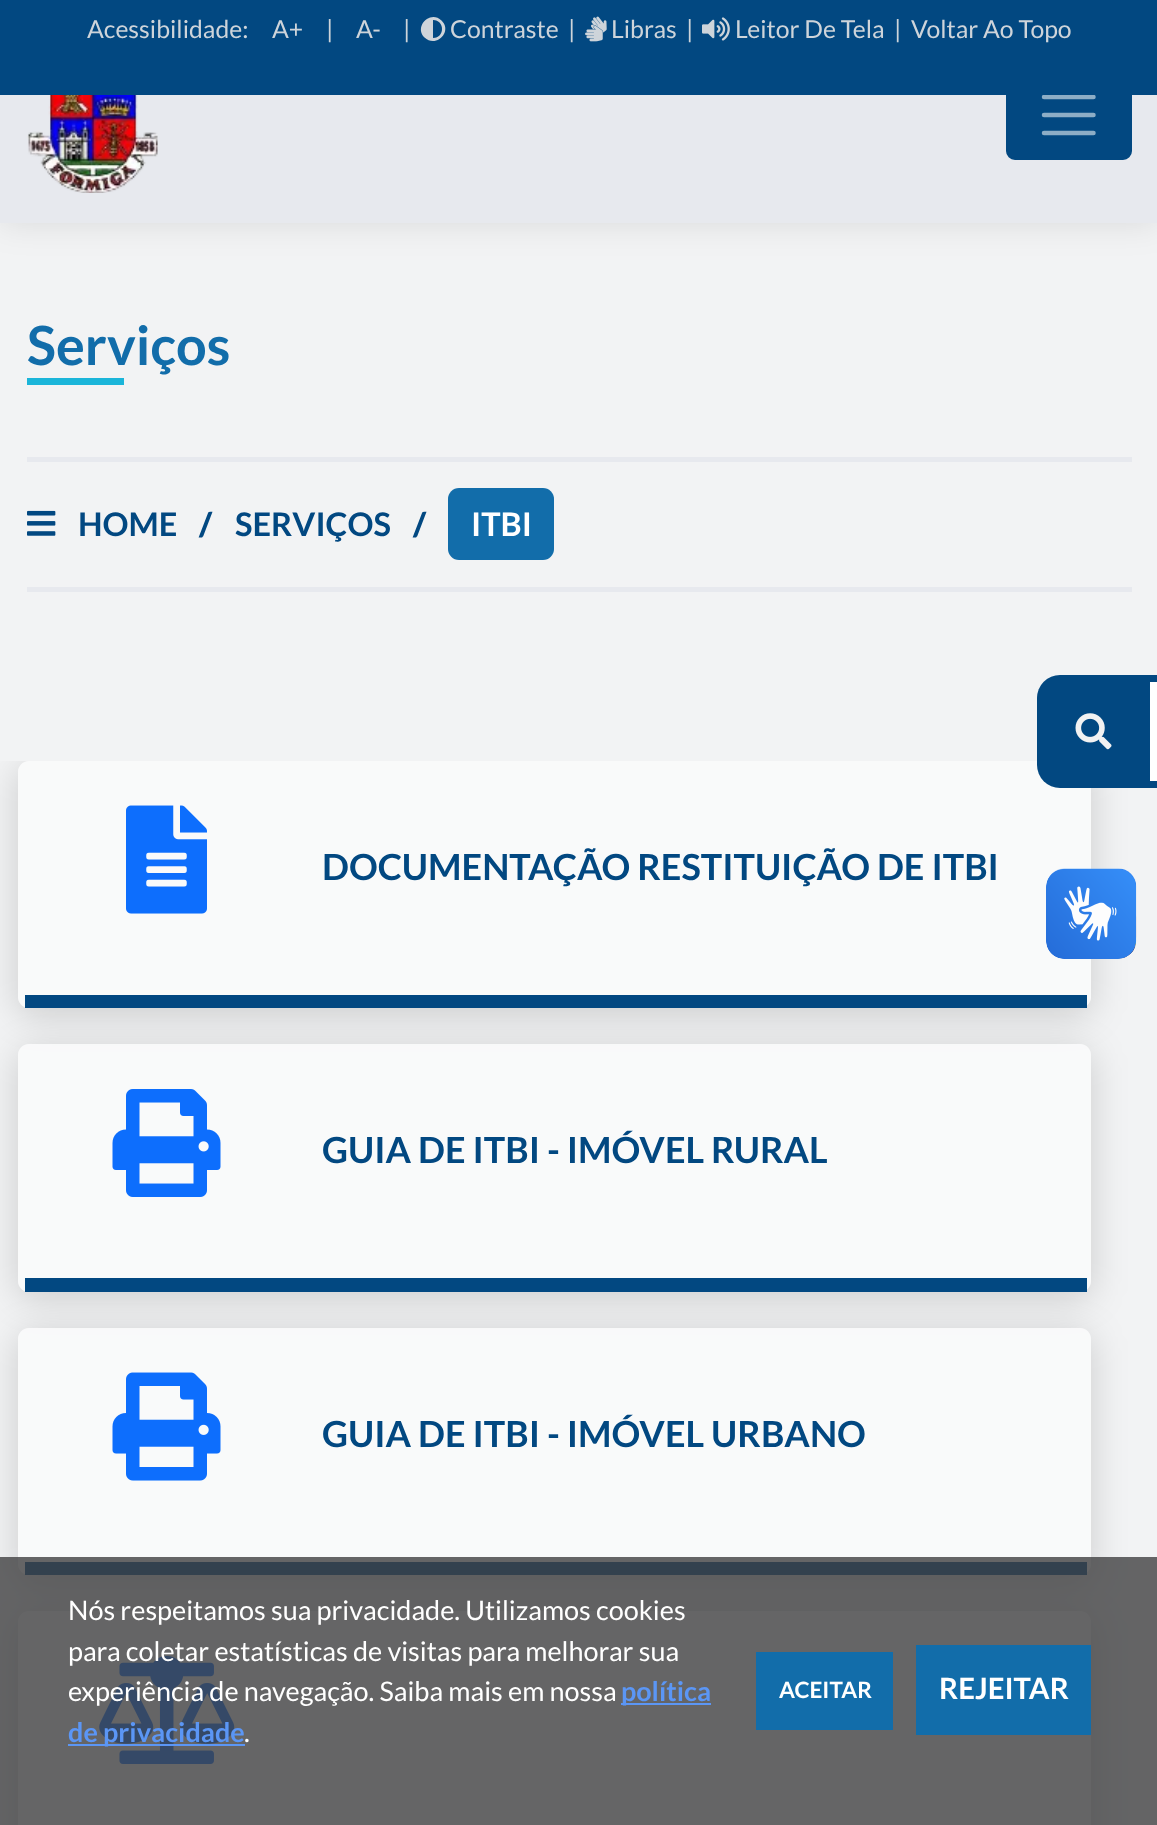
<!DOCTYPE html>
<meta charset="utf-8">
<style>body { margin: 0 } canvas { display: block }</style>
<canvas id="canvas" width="1157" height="1825"></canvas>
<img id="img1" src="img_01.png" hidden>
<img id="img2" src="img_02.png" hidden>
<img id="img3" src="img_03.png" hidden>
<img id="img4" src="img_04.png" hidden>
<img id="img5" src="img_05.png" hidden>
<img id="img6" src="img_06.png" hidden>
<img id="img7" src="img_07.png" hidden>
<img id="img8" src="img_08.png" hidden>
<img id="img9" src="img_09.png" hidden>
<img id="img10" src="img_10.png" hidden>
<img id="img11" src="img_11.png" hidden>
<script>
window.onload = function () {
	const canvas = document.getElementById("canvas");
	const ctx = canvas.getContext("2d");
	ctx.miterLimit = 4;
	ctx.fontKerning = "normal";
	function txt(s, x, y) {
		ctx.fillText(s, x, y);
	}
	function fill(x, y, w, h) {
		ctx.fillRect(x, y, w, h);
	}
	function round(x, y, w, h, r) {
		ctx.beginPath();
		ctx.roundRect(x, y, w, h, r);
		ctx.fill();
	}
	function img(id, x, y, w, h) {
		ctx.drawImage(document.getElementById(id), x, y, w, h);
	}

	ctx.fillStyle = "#F2F3F4";
	fill(0, 0, 1157, 1825);
	ctx.fillStyle = "rgba(0, 0, 0, 0.1)";
	ctx.filter = "blur(17px)";
	ctx.beginPath();
	ctx.rect(0, 7, 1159, 216);
	ctx.fill();
	ctx.filter = "none";
	ctx.fillStyle = "#E7E9EE";
	fill(0, 95, 1157, 128);
	img("img1", 27, 95, 131, 98);
	ctx.fillStyle = "#024881";
	ctx.beginPath();
	ctx.roundRect(1007, 71, 124, 88, 8);
	ctx.fill();
	ctx.strokeStyle = "#024881";
	ctx.lineWidth = 2;
	ctx.stroke();
	ctx.beginPath();
	ctx.moveTo(1044, 97);
	ctx.lineTo(1093.5, 97);
	ctx.moveTo(1044, 115);
	ctx.lineTo(1093.5, 115);
	ctx.moveTo(1044, 133);
	ctx.lineTo(1093.5, 133);
	ctx.strokeStyle = "#8DADC6";
	ctx.lineWidth = 4.5;
	ctx.lineCap = "round";
	ctx.stroke();
	fill(0, 0, 1157, 95);
	ctx.fillStyle = "#CED4DA";
	ctx.beginPath();
	ctx.moveTo(424.5, 37.5);
	ctx.bezierCurveTo(413.5, 26.5, 430.5, 9.5, 441.5, 20.5);
	ctx.bezierCurveTo(453, 31.5, 436, 48.5, 424.5, 37.5);
	ctx.closePath();
	ctx.moveTo(433, 38);
	ctx.bezierCurveTo(445, 38, 445, 20, 433, 20);
	ctx.closePath();
	ctx.fill();
	img("img2", 585, 16, 22, 26);
	img("img3", 702, 17, 28, 24);
	ctx.fillStyle = "#1BB5D9";
	fill(27, 378, 97, 7);
	ctx.fillStyle = "#E7E9EE";
	fill(27, 457, 1105, 5);
	img("img4", 27, 510, 29, 26);
	ctx.fillStyle = "#126DAA";
	round(448, 488, 106, 72, 11);
	ctx.fillStyle = "#E7E9EE";
	fill(27, 587, 1105, 5);
	ctx.save();
	ctx.beginPath();
	ctx.rect(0, 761, 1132, 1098);
	ctx.clip();
	ctx.beginPath();
	ctx.moveTo(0, 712);
	ctx.lineTo(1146, 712);
	ctx.lineTo(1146, 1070);
	ctx.lineTo(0, 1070);
	ctx.closePath();
	ctx.moveTo(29, 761);
	ctx.lineTo(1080, 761);
	ctx.bezierCurveTo(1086, 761, 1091, 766, 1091, 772);
	ctx.lineTo(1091, 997);
	ctx.bezierCurveTo(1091, 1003, 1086, 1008, 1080, 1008);
	ctx.lineTo(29, 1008);
	ctx.bezierCurveTo(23, 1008, 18, 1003, 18, 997);
	ctx.lineTo(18, 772);
	ctx.bezierCurveTo(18, 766, 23, 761, 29, 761);
	ctx.closePath();
	ctx.clip("evenodd");
	ctx.fillStyle = "rgba(0, 0, 0, 0.16)";
	ctx.filter = "blur(18px)";
	ctx.beginPath();
	ctx.roundRect(18, 767, 1073, 248, 11);
	ctx.fill();
	ctx.filter = "none";
	ctx.restore();
	ctx.fillStyle = "rgba(255, 255, 255, 0.55)";
	round(18, 761, 1073, 247, 11);
	ctx.fillStyle = "#024881";
	fill(25, 995, 1062, 13);
	img("img5", 126, 805, 81, 109);
	ctx.save();
	ctx.beginPath();
	ctx.moveTo(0, 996);
	ctx.lineTo(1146, 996);
	ctx.lineTo(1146, 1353);
	ctx.lineTo(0, 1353);
	ctx.closePath();
	ctx.moveTo(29, 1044);
	ctx.lineTo(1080, 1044);
	ctx.bezierCurveTo(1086, 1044, 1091, 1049, 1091, 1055);
	ctx.lineTo(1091, 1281);
	ctx.bezierCurveTo(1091, 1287, 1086, 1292, 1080, 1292);
	ctx.lineTo(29, 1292);
	ctx.bezierCurveTo(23, 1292, 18, 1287, 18, 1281);
	ctx.lineTo(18, 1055);
	ctx.bezierCurveTo(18, 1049, 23, 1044, 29, 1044);
	ctx.closePath();
	ctx.clip("evenodd");
	ctx.fillStyle = "rgba(0, 0, 0, 0.16)";
	ctx.filter = "blur(18px)";
	ctx.beginPath();
	ctx.roundRect(18, 1051, 1073, 247, 11);
	ctx.fill();
	ctx.filter = "none";
	ctx.restore();
	ctx.fillStyle = "rgba(255, 255, 255, 0.55)";
	round(18, 1044, 1073, 248, 11);
	ctx.fillStyle = "#024881";
	fill(25, 1278, 1062, 14);
	img("img6", 112, 1089, 109, 108);
	ctx.save();
	ctx.beginPath();
	ctx.moveTo(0, 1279);
	ctx.lineTo(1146, 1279);
	ctx.lineTo(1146, 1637);
	ctx.lineTo(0, 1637);
	ctx.closePath();
	ctx.moveTo(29, 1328);
	ctx.lineTo(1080, 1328);
	ctx.bezierCurveTo(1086, 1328, 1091, 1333, 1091, 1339);
	ctx.lineTo(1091, 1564);
	ctx.bezierCurveTo(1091, 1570, 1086, 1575, 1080, 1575);
	ctx.lineTo(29, 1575);
	ctx.bezierCurveTo(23, 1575, 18, 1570, 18, 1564);
	ctx.lineTo(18, 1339);
	ctx.bezierCurveTo(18, 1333, 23, 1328, 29, 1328);
	ctx.closePath();
	ctx.clip("evenodd");
	ctx.fillStyle = "rgba(0, 0, 0, 0.16)";
	ctx.filter = "blur(18px)";
	ctx.beginPath();
	ctx.roundRect(18, 1334, 1073, 248, 11);
	ctx.fill();
	ctx.filter = "none";
	ctx.restore();
	ctx.fillStyle = "rgba(255, 255, 255, 0.55)";
	round(18, 1328, 1073, 247, 11);
	ctx.fillStyle = "#024881";
	fill(25, 1562, 1062, 13);
	img("img7", 112, 1372, 109, 109);
	ctx.save();
	ctx.beginPath();
	ctx.moveTo(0, 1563);
	ctx.lineTo(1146, 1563);
	ctx.lineTo(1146, 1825);
	ctx.lineTo(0, 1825);
	ctx.closePath();
	ctx.moveTo(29, 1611);
	ctx.lineTo(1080, 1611);
	ctx.bezierCurveTo(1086, 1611, 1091, 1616, 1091, 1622);
	ctx.lineTo(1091, 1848);
	ctx.bezierCurveTo(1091, 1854, 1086, 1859, 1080, 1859);
	ctx.lineTo(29, 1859);
	ctx.bezierCurveTo(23, 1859, 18, 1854, 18, 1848);
	ctx.lineTo(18, 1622);
	ctx.bezierCurveTo(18, 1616, 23, 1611, 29, 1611);
	ctx.closePath();
	ctx.clip("evenodd");
	ctx.fillStyle = "rgba(0, 0, 0, 0.16)";
	ctx.filter = "blur(18px)";
	ctx.beginPath();
	ctx.roundRect(18, 1618, 1073, 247, 11);
	ctx.fill();
	ctx.filter = "none";
	ctx.restore();
	ctx.fillStyle = "rgba(255, 255, 255, 0.55)";
	round(18, 1611, 1073, 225, 11);
	img("img8", 99, 1656, 136, 108);
	ctx.fillStyle = "#024881";
	ctx.beginPath();
	ctx.roundRect(1037, 675, 113, 113, [23, 0, 0, 23]);
	ctx.fill();
	img("img9", 1075, 713, 37, 37);
	ctx.fillStyle = "#FFFFFF";
	fill(1150, 675, 7, 113);
	ctx.fillStyle = "#024881";
	fill(1150, 675, 7, 7);
	fill(1150, 781, 7, 7);
	img("img10", 1046, 868, 91, 91);
	img("img11", 1046, 869, 90, 90);
	ctx.fillStyle = "rgba(64, 64, 65, 0.8)";
	fill(0, 1557, 1157, 268);
	ctx.fillStyle = "#5B96F5";
	fill(621, 1703, 90, 2);
	fill(68, 1744, 177, 2);
	ctx.fillStyle = "#126DAA";
	fill(756, 1652, 137, 78);
	fill(916, 1645, 175, 90);
	ctx.font = "24.75px Lato";
	ctx.fillStyle = "#CED4DA";
	txt("Acessibilidade:", 87, 38);
	txt("A+", 272, 38);
	txt("|", 326, 38);
	txt("A-", 356, 38);
	txt("|", 403, 38);
	txt("Contraste", 450, 38);
	txt("|", 568, 38);
	txt("Libras", 611, 38);
	txt("|", 686, 38);
	txt("Leitor De Tela", 735, 38);
	txt("|", 894, 38);
	txt("Voltar Ao Topo", 911, 38);
	ctx.font = "bold 54px Lato";
	ctx.fillStyle = "#126DAA";
	txt("Serviços", 27, 365);
	ctx.font = "bold 32.5px Lato";
	ctx.fillStyle = "#024881";
	txt("HOME", 78, 536);
	ctx.font = "900 32.5px Lato";
	txt("/", 199, 536);
	ctx.font = "bold 32.5px Lato";
	txt("SERVIÇOS", 235, 536);
	ctx.font = "900 32.5px Lato";
	txt("/", 413, 536);
	ctx.font = "bold 32.5px Lato";
	ctx.fillStyle = "#FFFFFF";
	txt("ITBI", 471, 536);
	ctx.font = "bold 36px Lato";
	ctx.fillStyle = "#024881";
	txt("DOCUMENTAÇÃO RESTITUIÇÃO DE ITBI", 322, 880);
	txt("GUIA DE ITBI - IMÓVEL RURAL", 322, 1163);
	txt("GUIA DE ITBI - IMÓVEL URBANO", 322, 1447);
	ctx.font = "27px Lato";
	ctx.fillStyle = "#FFFFFF";
	txt("Nós respeitamos sua privacidade. Utilizamos cookies", 68, 1620);
	txt("para coletar estatísticas de visitas para melhorar sua", 68, 1661);
	txt("experiência de navegação. Saiba mais em nossa", 68, 1701);
	ctx.font = "bold 27px Lato";
	ctx.fillStyle = "#5B96F5";
	txt("política", 621, 1701);
	txt("de privacidade", 68, 1742);
	ctx.font = "27px Lato";
	ctx.fillStyle = "#FFFFFF";
	txt(".", 244, 1742);
	ctx.font = "bold 22.5px Lato";
	txt("ACEITAR", 779, 1698);
	ctx.font = "bold 29.25px Lato";
	txt("REJEITAR", 939, 1699);
};
</script>
